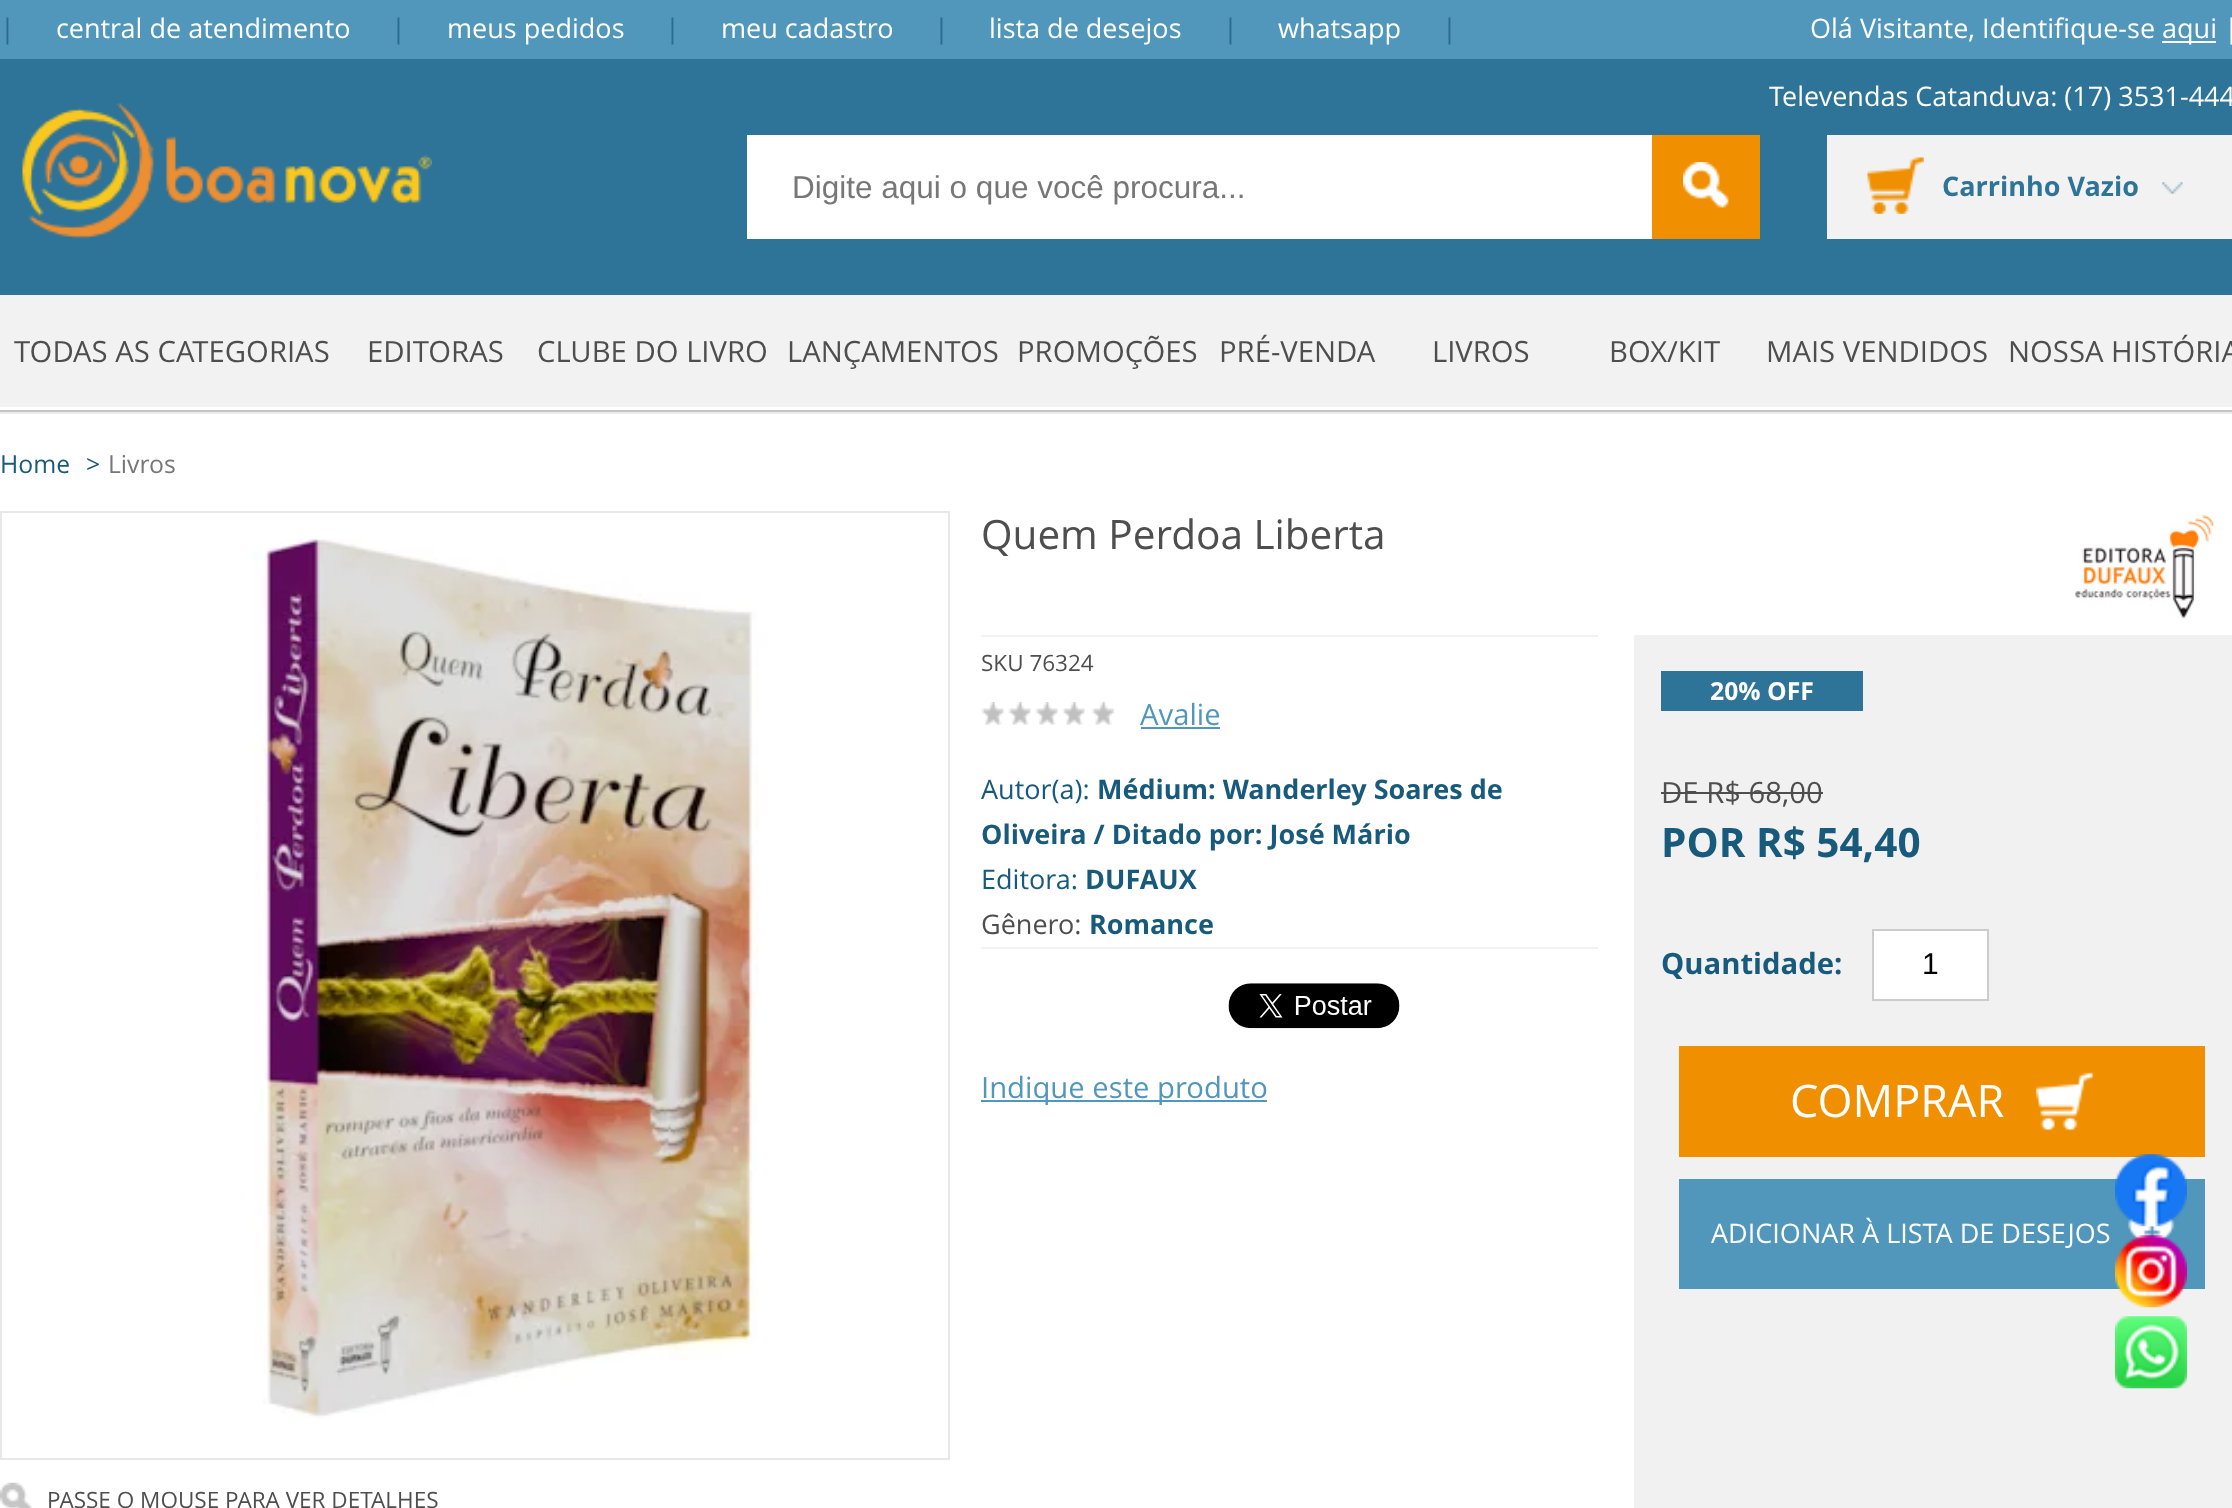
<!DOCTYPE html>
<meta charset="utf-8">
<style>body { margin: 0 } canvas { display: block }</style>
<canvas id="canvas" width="2232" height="1508"></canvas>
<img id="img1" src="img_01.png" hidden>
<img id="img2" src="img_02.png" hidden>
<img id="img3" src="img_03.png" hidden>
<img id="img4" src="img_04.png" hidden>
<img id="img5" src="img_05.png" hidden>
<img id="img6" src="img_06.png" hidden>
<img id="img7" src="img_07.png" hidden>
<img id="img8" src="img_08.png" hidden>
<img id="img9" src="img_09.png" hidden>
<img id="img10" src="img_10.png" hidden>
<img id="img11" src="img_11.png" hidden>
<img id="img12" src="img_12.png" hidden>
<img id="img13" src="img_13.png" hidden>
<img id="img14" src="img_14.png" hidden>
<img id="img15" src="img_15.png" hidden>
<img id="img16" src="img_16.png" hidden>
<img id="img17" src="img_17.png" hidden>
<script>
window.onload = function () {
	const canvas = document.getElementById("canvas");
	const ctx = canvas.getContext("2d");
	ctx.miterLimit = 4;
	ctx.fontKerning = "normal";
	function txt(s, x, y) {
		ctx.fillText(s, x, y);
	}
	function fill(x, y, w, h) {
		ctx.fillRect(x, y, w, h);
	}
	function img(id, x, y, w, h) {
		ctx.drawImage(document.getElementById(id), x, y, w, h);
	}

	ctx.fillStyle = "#FFFFFF";
	fill(0, 0, 2232, 1508);
	ctx.fillStyle = "#2E7499";
	fill(0, 59, 2232, 236);
	ctx.fillStyle = "#5197BB";
	fill(0, 0, 2232, 59);
	ctx.fillStyle = "#FFFFFF";
	fill(2162, 41, 54, 2);
	img("img1", 22, 103, 410, 136);
	fill(747, 135, 905, 104);
	ctx.fillStyle = "#F08F00";
	fill(1652, 135, 108, 104);
	img("img2", 1683, 162, 46, 46);
	ctx.fillStyle = "#F2F2F2";
	fill(1827, 135, 405, 104);
	img("img3", 1867, 157, 57, 57);
	img("img4", 2162, 182, 21, 12);
	fill(0, 295, 2232, 112);
	ctx.fillStyle = "#ECECEC";
	fill(0, 412, 2232, 2);
	ctx.fillStyle = "#C5C5C5";
	fill(0, 410, 2232, 2);
	img("img5", 2075, 513, 140, 106);
	ctx.fillStyle = "#F2F2F2";
	fill(981, 635, 617, 2);
	img("img6", 981, 702, 23, 23);
	img("img7", 1008, 702, 23, 23);
	img("img8", 1035, 702, 23, 23);
	img("img6", 1062, 702, 23, 23);
	img("img9", 1091, 702, 23, 23);
	ctx.fillStyle = "#5197BB";
	fill(1141, 727, 79, 2);
	ctx.fillStyle = "#F2F2F2";
	fill(981, 947, 617, 2);
	img("img10", 1228, 983, 172, 46);
	ctx.fillStyle = "#5197BB";
	fill(981, 1100, 286, 2);
	ctx.fillStyle = "#F1F1F1";
	fill(1634, 635, 598, 873);
	ctx.fillStyle = "#2E7499";
	fill(1661, 671, 202, 40);
	ctx.fillStyle = "#4E4E4E";
	fill(1661, 792, 162, 2);
	ctx.fillStyle = "#FFFFFF";
	ctx.beginPath();
	ctx.rect(1873, 930, 115, 70);
	ctx.fill();
	ctx.strokeStyle = "#CCCCCC";
	ctx.lineWidth = 2;
	ctx.stroke();
	ctx.fillStyle = "#F08F00";
	fill(1679, 1046, 526, 111);
	img("img11", 2036, 1072, 58, 59);
	ctx.fillStyle = "#5197BB";
	fill(1679, 1179, 526, 110);
	img("img12", 2128, 1212, 47, 29);
	ctx.strokeStyle = "#E8E8E6";
	ctx.strokeRect(1, 512, 948, 947);
	img("img13", 253, 538, 506, 881);
	img("img14", 0, 1482, 32, 26);
	img("img15", 2115, 1154, 72, 73);
	img("img16", 2115, 1235, 72, 73);
	img("img17", 2115, 1316, 72, 73);
	ctx.font = "27px Open Sans";
	ctx.fillStyle = "#2A6C8E";
	txt("|", 0, 38);
	ctx.fillStyle = "#FFFFFF";
	txt("central de atendimento", 56, 38);
	ctx.fillStyle = "#2A6C8E";
	txt("|", 391, 38);
	ctx.fillStyle = "#FFFFFF";
	txt("meus pedidos", 447, 38);
	ctx.fillStyle = "#2A6C8E";
	txt("|", 665, 38);
	ctx.fillStyle = "#FFFFFF";
	txt("meu cadastro", 721, 38);
	ctx.fillStyle = "#2A6C8E";
	txt("|", 934, 38);
	ctx.fillStyle = "#FFFFFF";
	txt("lista de desejos", 989, 38);
	ctx.fillStyle = "#2A6C8E";
	txt("|", 1223, 38);
	ctx.fillStyle = "#FFFFFF";
	txt("whatsapp", 1278, 38);
	ctx.fillStyle = "#2A6C8E";
	txt("|", 1442, 38);
	ctx.fillStyle = "#FFFFFF";
	txt("Olá Visitante, Identifique-se", 1810, 38);
	txt("aqui |", 2162, 38);
	txt("Televendas Catanduva: (17) 3531-444", 1769, 106);
	ctx.font = "31.5px Liberation Sans";
	ctx.fillStyle = "#777777";
	txt("Digite aqui o que você procura...", 792, 198);
	ctx.font = "bold 27px Open Sans";
	ctx.fillStyle = "#2E7499";
	txt("Carrinho Vazio", 1942, 196);
	ctx.font = "29.25px Open Sans";
	ctx.fillStyle = "#4E4E4E";
	txt("TODAS AS CATEGORIAS", 14, 362);
	txt("EDITORAS", 367, 362);
	txt("CLUBE DO LIVRO", 537, 362);
	txt("LANÇAMENTOS", 787, 362);
	txt("PROMOÇÕES", 1017, 362);
	txt("PRÉ-VENDA", 1219, 362);
	txt("LIVROS", 1432, 362);
	txt("BOX/KIT", 1609, 362);
	txt("MAIS VENDIDOS", 1766, 362);
	txt("NOSSA HISTÓRIA", 2008, 362);
	ctx.font = "24.75px Open Sans";
	ctx.fillStyle = "#175A7C";
	txt("Home", 0, 473);
	txt(">", 86, 473);
	ctx.fillStyle = "#777777";
	txt("Livros", 108, 473);
	ctx.font = "40.5px Open Sans";
	ctx.fillStyle = "#4E4E4E";
	txt("Quem Perdoa Liberta", 981, 549);
	ctx.font = "22.5px Open Sans";
	txt("SKU 76324", 981, 671);
	ctx.font = "29.25px Open Sans";
	ctx.fillStyle = "#5197BB";
	txt("Avalie", 1140, 725);
	ctx.font = "27px Open Sans";
	ctx.fillStyle = "#175A7C";
	txt("Autor(a):", 981, 799);
	ctx.font = "bold 27px Open Sans";
	txt("Médium: Wanderley Soares de", 1097, 799);
	txt("Oliveira / Ditado por: José Mário", 981, 844);
	ctx.font = "27px Open Sans";
	txt("Editora:", 981, 889);
	ctx.font = "bold 27px Open Sans";
	txt("DUFAUX", 1085, 889);
	ctx.font = "27px Open Sans";
	ctx.fillStyle = "#4E4E4E";
	txt("Gênero:", 981, 934);
	ctx.font = "bold 27px Open Sans";
	ctx.fillStyle = "#175A7C";
	txt("Romance", 1089, 934);
	ctx.font = "29.25px Open Sans";
	ctx.fillStyle = "#5197BB";
	txt("Indique este produto", 981, 1098);
	ctx.font = "bold 24.75px Open Sans";
	ctx.fillStyle = "#FFFFFF";
	txt("20% OFF", 1710, 700);
	ctx.font = "29.25px Open Sans";
	ctx.fillStyle = "#4E4E4E";
	txt("DE R$ 68,00", 1661, 803);
	ctx.font = "bold 40.5px Open Sans";
	ctx.fillStyle = "#175A7C";
	txt("POR R$ 54,40", 1661, 857);
	ctx.font = "bold 29.25px Open Sans";
	txt("Quantidade:", 1661, 974);
	ctx.font = "30px Liberation Sans";
	ctx.fillStyle = "#000000";
	txt("1", 1922, 974);
	ctx.font = "45px Open Sans";
	ctx.fillStyle = "#FFFFFF";
	txt("COMPRAR", 1790, 1117);
	ctx.font = "27px Open Sans";
	txt("ADICIONAR À LISTA DE DESEJOS", 1711, 1243);
	ctx.font = "22.5px Open Sans";
	ctx.fillStyle = "#4E4E4E";
	txt("PASSE O MOUSE PARA VER DETALHES", 47, 1508);
};
</script>
